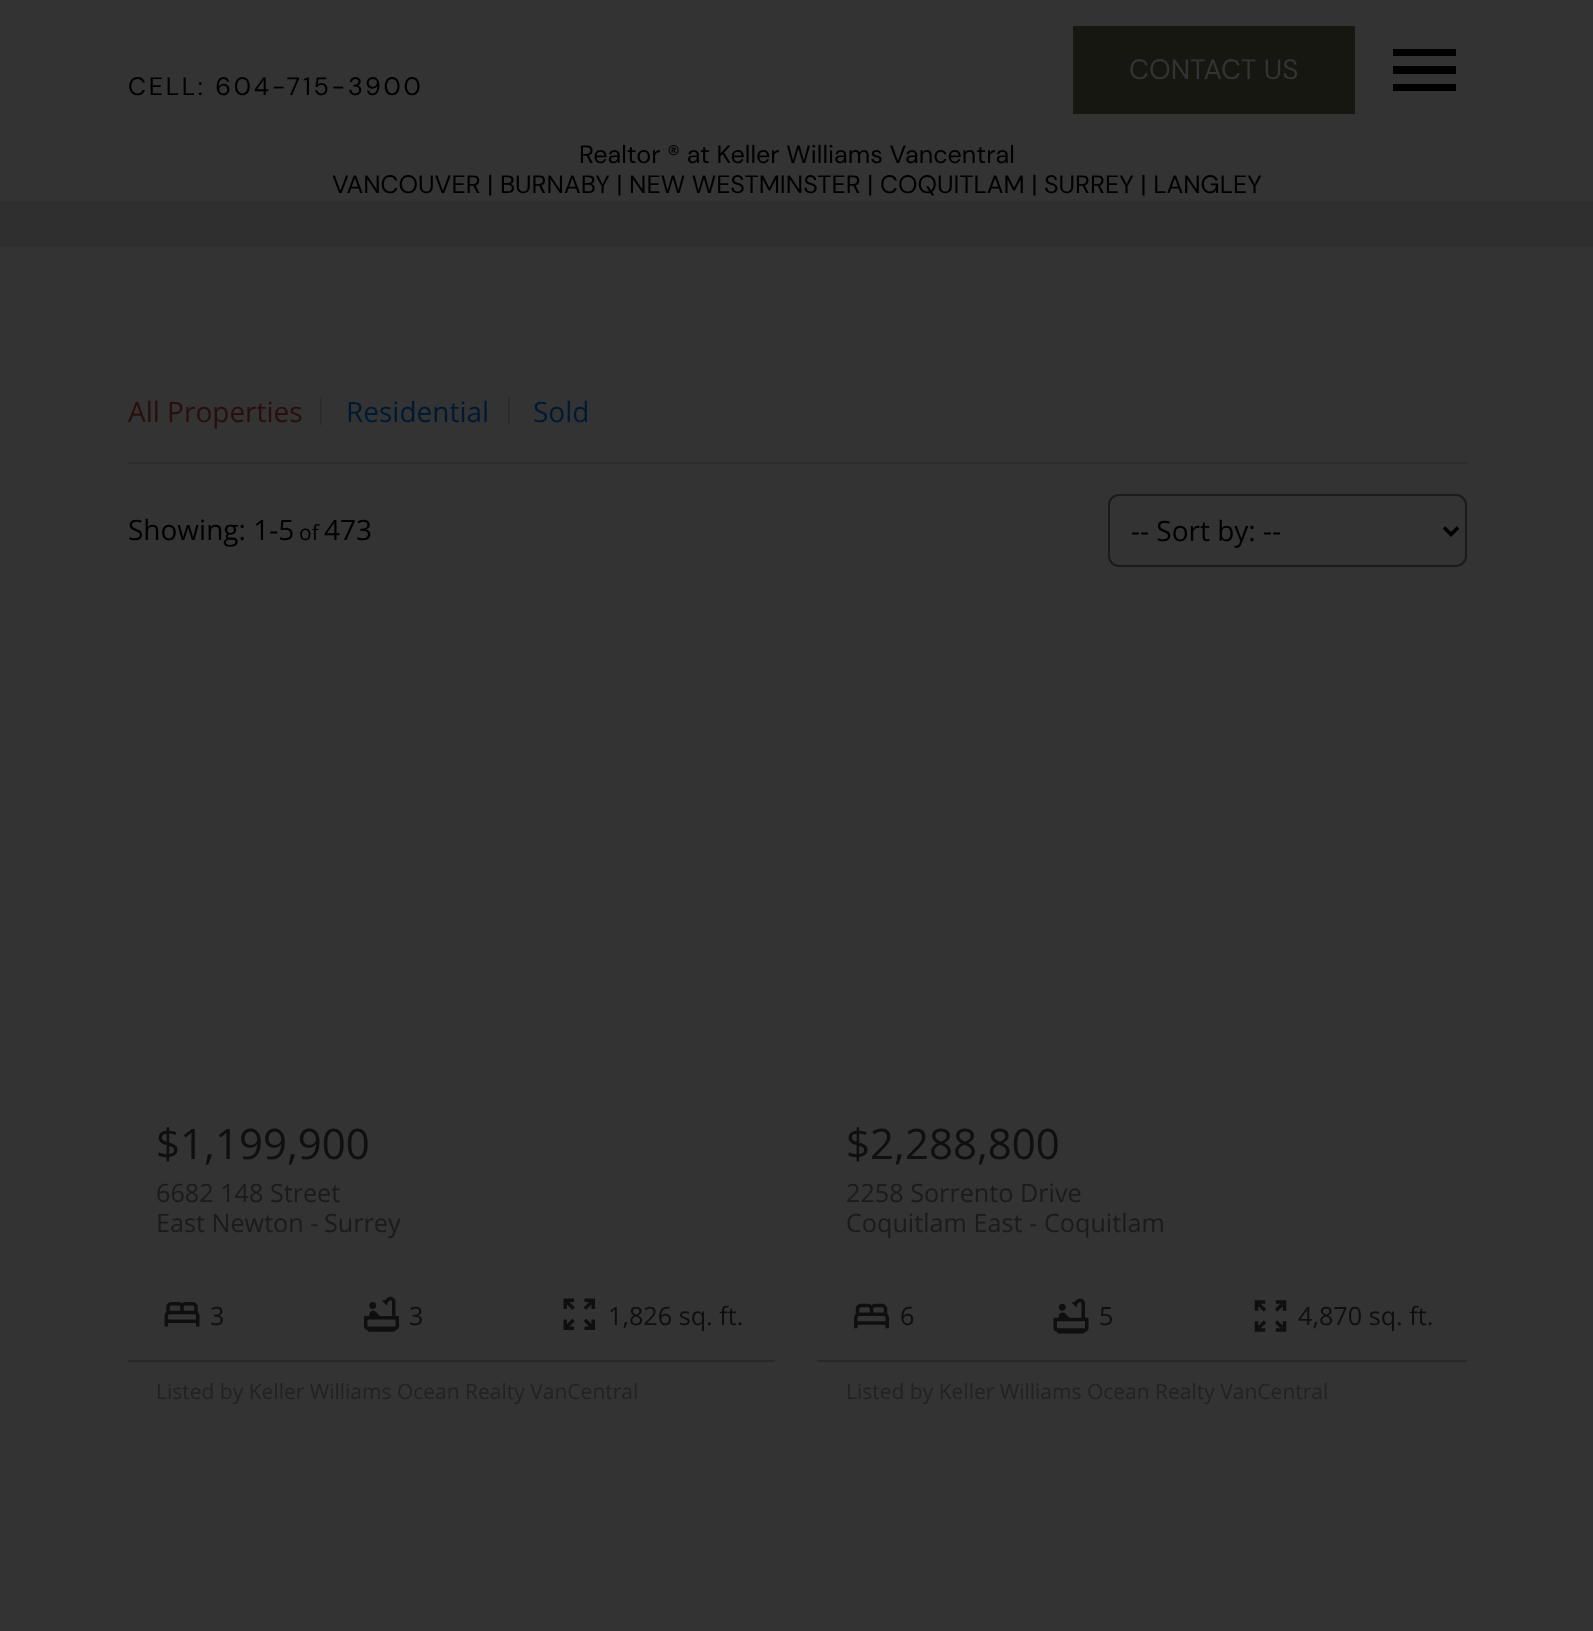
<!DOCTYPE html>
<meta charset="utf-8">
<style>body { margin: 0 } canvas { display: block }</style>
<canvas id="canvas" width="1593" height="1631"></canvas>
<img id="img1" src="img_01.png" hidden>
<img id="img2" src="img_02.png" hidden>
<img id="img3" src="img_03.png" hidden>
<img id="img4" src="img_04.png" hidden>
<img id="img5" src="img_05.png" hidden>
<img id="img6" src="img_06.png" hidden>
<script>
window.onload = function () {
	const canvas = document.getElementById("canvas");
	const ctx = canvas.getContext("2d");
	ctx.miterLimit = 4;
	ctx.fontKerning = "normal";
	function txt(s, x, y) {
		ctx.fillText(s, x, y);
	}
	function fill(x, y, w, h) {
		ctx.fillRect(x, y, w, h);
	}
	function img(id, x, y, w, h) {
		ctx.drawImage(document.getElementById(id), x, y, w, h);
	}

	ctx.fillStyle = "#333333";
	fill(0, 0, 1593, 1631);
	ctx.fillStyle = "#2F2F2F";
	fill(0, 201, 1593, 46);
	ctx.fillStyle = "#171711";
	fill(1073, 26, 282, 88);
	ctx.fillStyle = "#000000";
	ctx.beginPath();
	ctx.moveTo(1393, 91);
	ctx.lineTo(1456, 91);
	ctx.lineTo(1456, 84);
	ctx.lineTo(1393, 84);
	ctx.closePath();
	ctx.moveTo(1393, 74);
	ctx.lineTo(1456, 74);
	ctx.lineTo(1456, 66);
	ctx.lineTo(1393, 66);
	ctx.closePath();
	ctx.moveTo(1393, 49);
	ctx.lineTo(1393, 56);
	ctx.lineTo(1456, 56);
	ctx.lineTo(1456, 49);
	ctx.closePath();
	ctx.fill();
	ctx.fillStyle = "#2C2C2C";
	fill(320, 397, 2, 28);
	fill(508, 397, 2, 28);
	fill(128, 462, 1339, 2);
	ctx.beginPath();
	ctx.roundRect(1109, 495, 357, 71, 10);
	ctx.strokeStyle = "#1B1B1B";
	ctx.lineWidth = 2;
	ctx.stroke();
	ctx.beginPath();
	ctx.moveTo(1444, 527.5);
	ctx.lineTo(1451, 534.5);
	ctx.lineTo(1458, 527.5);
	ctx.strokeStyle = "#000000";
	ctx.lineWidth = 3.5;
	ctx.stroke();
	img("img1", 164, 1302, 36, 25);
	img("img2", 364, 1296, 35, 36);
	img("img3", 563, 1298, 32, 32);
	ctx.fillStyle = "#282828";
	fill(128, 1360, 647, 2);
	img("img4", 854, 1303, 35, 26);
	img("img5", 1053, 1298, 36, 36);
	img("img6", 1254, 1300, 33, 32);
	fill(817, 1360, 650, 2);
	ctx.font = "28px DM Sans";
	ctx.fillStyle = "#333333";
	txt("CONTACT US", 1129, 79);
	ctx.letterSpacing = "2.75px";
	ctx.font = "25.2px DM Sans";
	ctx.fillStyle = "#000000";
	txt("CELL: 604-715-3900", 128, 95);
	ctx.letterSpacing = "0px";
	txt("Realtor ® at Keller Williams Vancentral", 579, 163);
	txt("VANCOUVER | BURNABY | NEW WESTMINSTER | COQUITLAM | SURREY | LANGLEY", 332, 193);
	ctx.font = "28px Open Sans";
	ctx.fillStyle = "#290E0E";
	txt("All Properties", 128, 422);
	ctx.fillStyle = "#001933";
	txt("Residential", 346, 422);
	txt("Sold", 533, 422);
	ctx.fillStyle = "#000000";
	txt("Showing: 1-5", 128, 540);
	ctx.font = "21px Open Sans";
	txt("of", 299, 540);
	ctx.font = "28px Open Sans";
	txt("473", 324, 540);
	txt("-- Sort by: --", 1131, 541);
	ctx.font = "42px Open Sans";
	ctx.fillStyle = "#0F0F0F";
	txt("$1,199,900", 156, 1159);
	ctx.font = "25.2px Open Sans";
	ctx.fillStyle = "#1B1B1B";
	txt("6682 148 Street", 156, 1202);
	txt("East Newton -", 156, 1232);
	txt("Surrey", 324, 1232);
	ctx.fillStyle = "#0F0F0F";
	txt("3", 210, 1325);
	txt("3", 409, 1325);
	txt("1,826 sq. ft.", 608, 1325);
	ctx.font = "21px Open Sans";
	ctx.fillStyle = "#222222";
	txt("Listed by Keller Williams Ocean Realty VanCentral", 156, 1399);
	ctx.font = "42px Open Sans";
	ctx.fillStyle = "#0F0F0F";
	txt("$2,288,800", 846, 1159);
	ctx.font = "25.2px Open Sans";
	ctx.fillStyle = "#1B1B1B";
	txt("2258 Sorrento Drive", 846, 1202);
	txt("Coquitlam East -", 846, 1232);
	txt("Coquitlam", 1044, 1232);
	ctx.fillStyle = "#0F0F0F";
	txt("6", 900, 1325);
	txt("5", 1099, 1325);
	txt("4,870 sq. ft.", 1298, 1325);
	ctx.font = "21px Open Sans";
	ctx.fillStyle = "#222222";
	txt("Listed by Keller Williams Ocean Realty VanCentral", 846, 1399);
};
</script>
